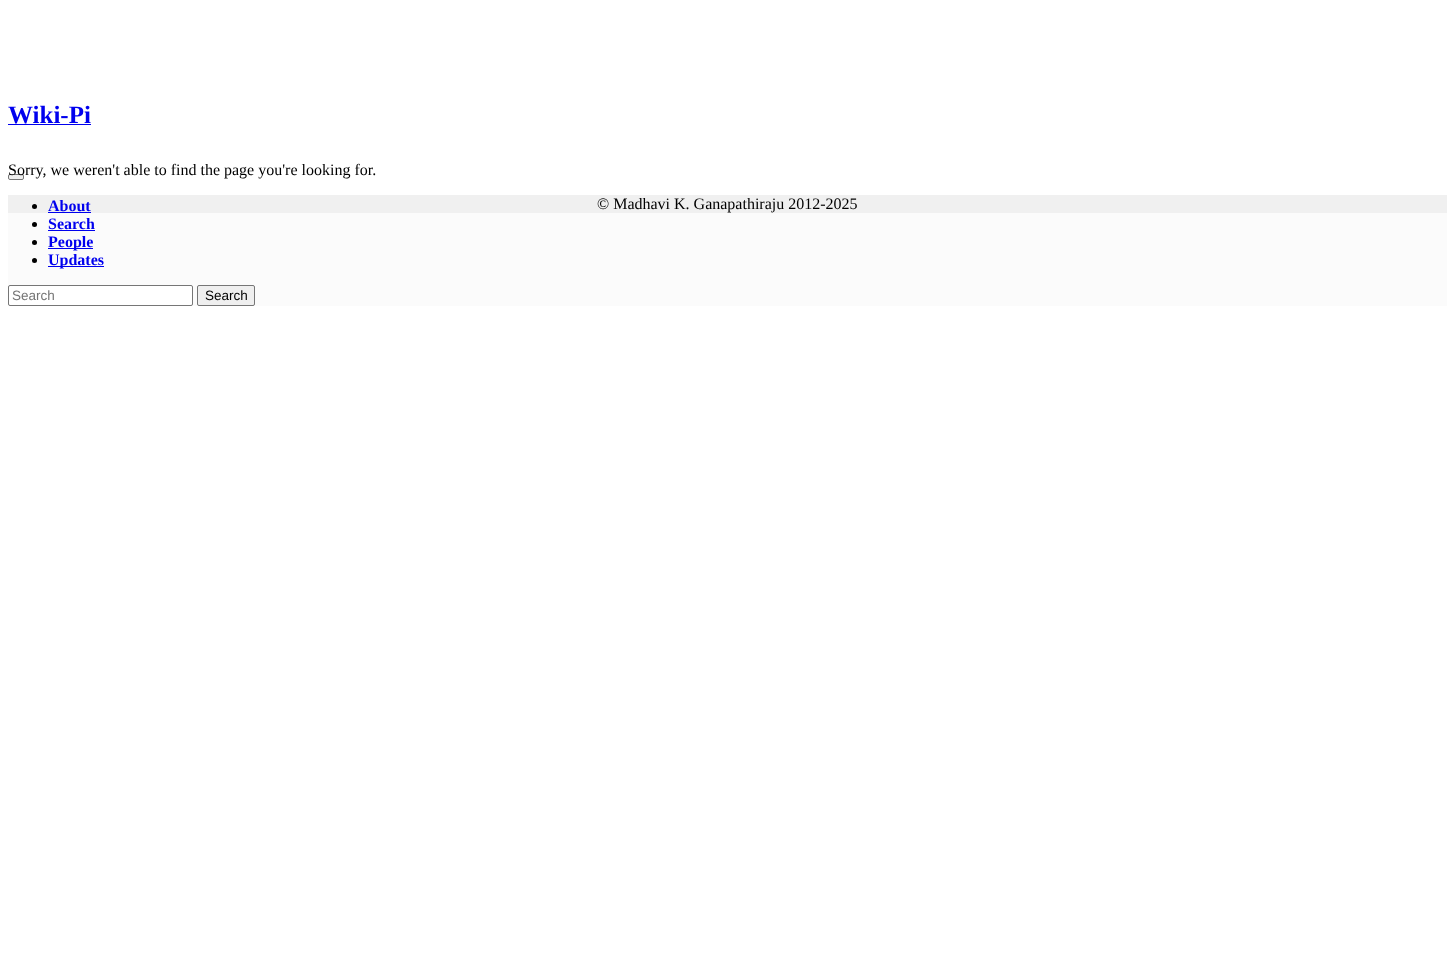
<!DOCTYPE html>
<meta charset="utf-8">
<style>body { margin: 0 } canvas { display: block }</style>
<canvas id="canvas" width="1455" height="954"></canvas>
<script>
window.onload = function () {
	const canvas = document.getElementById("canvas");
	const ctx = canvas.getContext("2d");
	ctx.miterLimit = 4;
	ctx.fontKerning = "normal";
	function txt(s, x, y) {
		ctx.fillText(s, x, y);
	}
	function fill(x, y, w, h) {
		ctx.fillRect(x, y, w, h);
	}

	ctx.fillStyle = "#FFFFFF";
	fill(0, 0, 1455, 954);
	ctx.fillStyle = "#0000EE";
	fill(8, 124, 83, 1);
	ctx.fillStyle = "#EFEFEF";
	ctx.beginPath();
	ctx.roundRect(8.5, 174.5, 15, 5, 1.5);
	ctx.fill();
	ctx.strokeStyle = "#767676";
	ctx.stroke();
	ctx.fillStyle = "#FBFBFB";
	fill(8, 213, 1439, 93);
	ctx.fillStyle = "#F0F0F0";
	fill(8, 195, 1439, 18);
	ctx.fillStyle = "#000000";
	ctx.beginPath();
	ctx.arc(34.5, 206.5, 2.5, 0, Math.PI * 2);
	ctx.fill();
	ctx.fillStyle = "#0000EE";
	fill(48, 212, 43, 1);
	ctx.fillStyle = "#000000";
	ctx.beginPath();
	ctx.arc(34.5, 224.5, 2.5, 0, Math.PI * 2);
	ctx.fill();
	ctx.fillStyle = "#0000EE";
	fill(48, 230, 47, 1);
	ctx.fillStyle = "#000000";
	ctx.beginPath();
	ctx.arc(34.5, 242.5, 2.5, 0, Math.PI * 2);
	ctx.fill();
	ctx.fillStyle = "#0000EE";
	fill(48, 248, 45, 1);
	ctx.fillStyle = "#000000";
	ctx.beginPath();
	ctx.arc(34.5, 260.5, 2.5, 0, Math.PI * 2);
	ctx.fill();
	ctx.fillStyle = "#0000EE";
	fill(48, 266, 56, 1);
	ctx.fillStyle = "#FFFFFF";
	ctx.beginPath();
	ctx.roundRect(8.5, 285.5, 184, 20, 1.5);
	ctx.fill();
	ctx.stroke();
	ctx.fillStyle = "#EFEFEF";
	ctx.beginPath();
	ctx.roundRect(197.5, 285.5, 57, 20, 1.5);
	ctx.fill();
	ctx.stroke();
	ctx.font = "bold 25px Liberation Serif";
	ctx.fillStyle = "#0000EE";
	txt("Wiki-Pi", 8, 123);
	ctx.font = "bold 16px Liberation Serif";
	txt("About", 48, 211);
	txt("Search", 48, 229);
	txt("People", 48, 247);
	txt("Updates", 48, 265);
	ctx.font = "13.5px Liberation Sans";
	ctx.fillStyle = "#757575";
	txt("Search", 12, 300);
	ctx.fillStyle = "#000000";
	txt("Search", 205, 300);
	ctx.font = "16px Liberation Serif";
	txt("Sorry, we weren't able to find the page you're looking for.", 8, 175);
	txt("© Madhavi K. Ganapathiraju 2012-2025", 597, 209);
};
</script>
